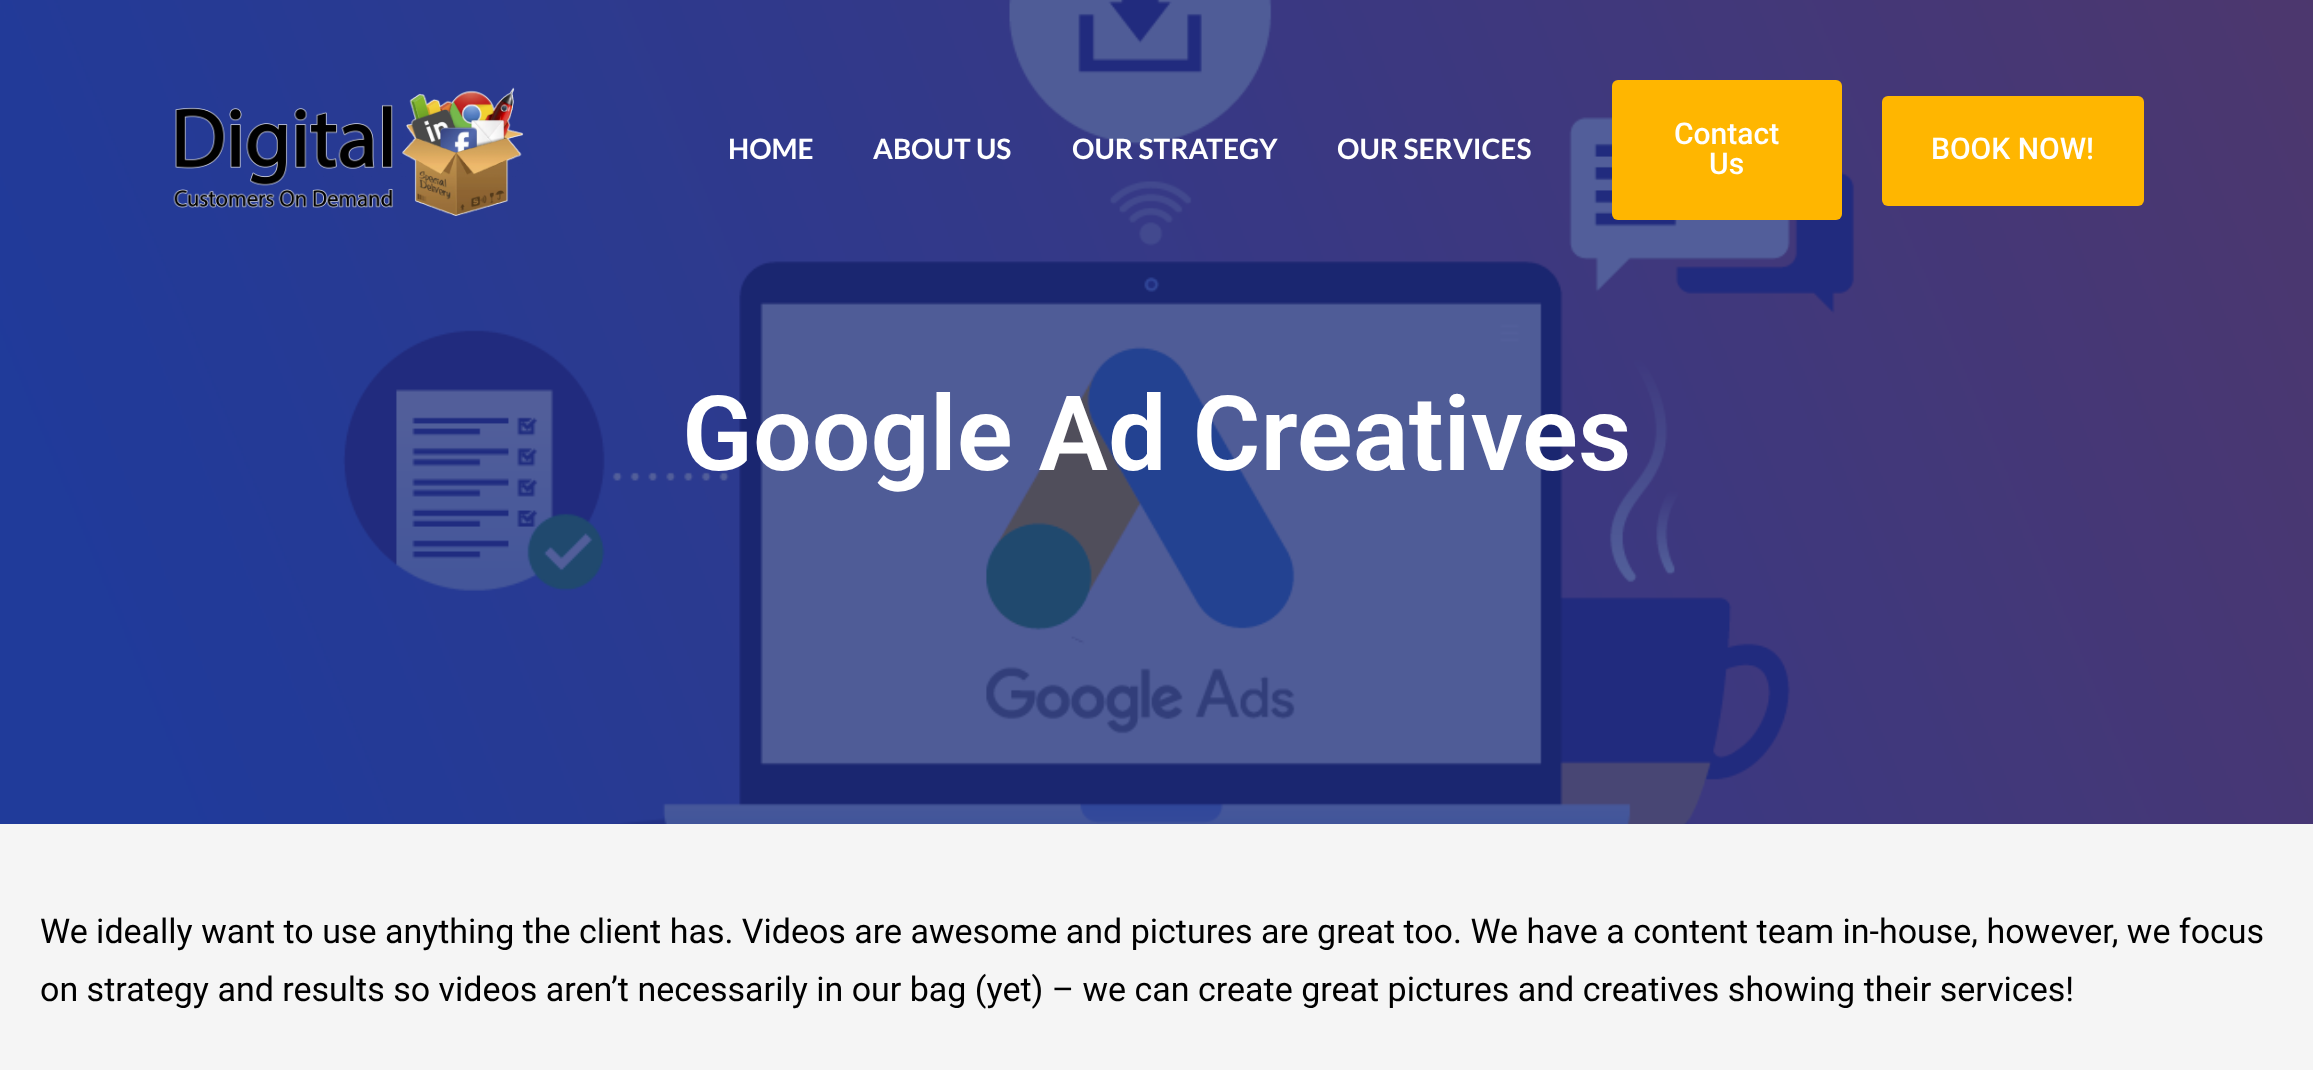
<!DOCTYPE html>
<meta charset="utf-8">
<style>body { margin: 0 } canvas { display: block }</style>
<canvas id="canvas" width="2313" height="1070"></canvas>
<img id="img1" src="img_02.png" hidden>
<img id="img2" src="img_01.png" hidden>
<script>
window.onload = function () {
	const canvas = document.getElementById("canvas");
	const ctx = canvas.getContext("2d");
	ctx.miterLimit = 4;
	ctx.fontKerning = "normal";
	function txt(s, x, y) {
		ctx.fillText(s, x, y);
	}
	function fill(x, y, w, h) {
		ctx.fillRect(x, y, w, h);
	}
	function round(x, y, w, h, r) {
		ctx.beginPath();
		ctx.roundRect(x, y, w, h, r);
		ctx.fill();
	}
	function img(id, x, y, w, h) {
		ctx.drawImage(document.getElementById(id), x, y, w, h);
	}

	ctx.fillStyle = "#F5F5F5";
	fill(0, 0, 2313, 1070);
	img("img1", 0, 0, 2313, 824);
	img("img2", 173, 87, 351, 129);
	ctx.fillStyle = "#FFB600";
	round(1612, 80, 230, 140, 6);
	round(1882, 96, 262, 110, 6);
	ctx.font = "bold 28px Lato";
	ctx.fillStyle = "#FFFFFF";
	txt("HOME", 728, 159);
	txt("ABOUT US", 873, 159);
	txt("OUR STRATEGY", 1072, 159);
	txt("OUR SERVICES", 1337, 159);
	ctx.font = "500 30px Roboto";
	txt("Contact", 1674, 144);
	txt("Us", 1709, 174);
	txt("BOOK NOW!", 1931, 159);
	ctx.font = "600 104px Roboto";
	txt("Google Ad Creatives", 682, 470);
	ctx.font = "34px Roboto";
	ctx.fillStyle = "#000000";
	txt("We ideally want to use anything the client has. Videos are awesome and pictures are great too. We have a content team in-house, however, we focus", 40, 943);
	txt("on strategy and results so videos aren’t necessarily in our bag (yet) – we can create great pictures and creatives showing their services!", 40, 1001);
};
</script>
